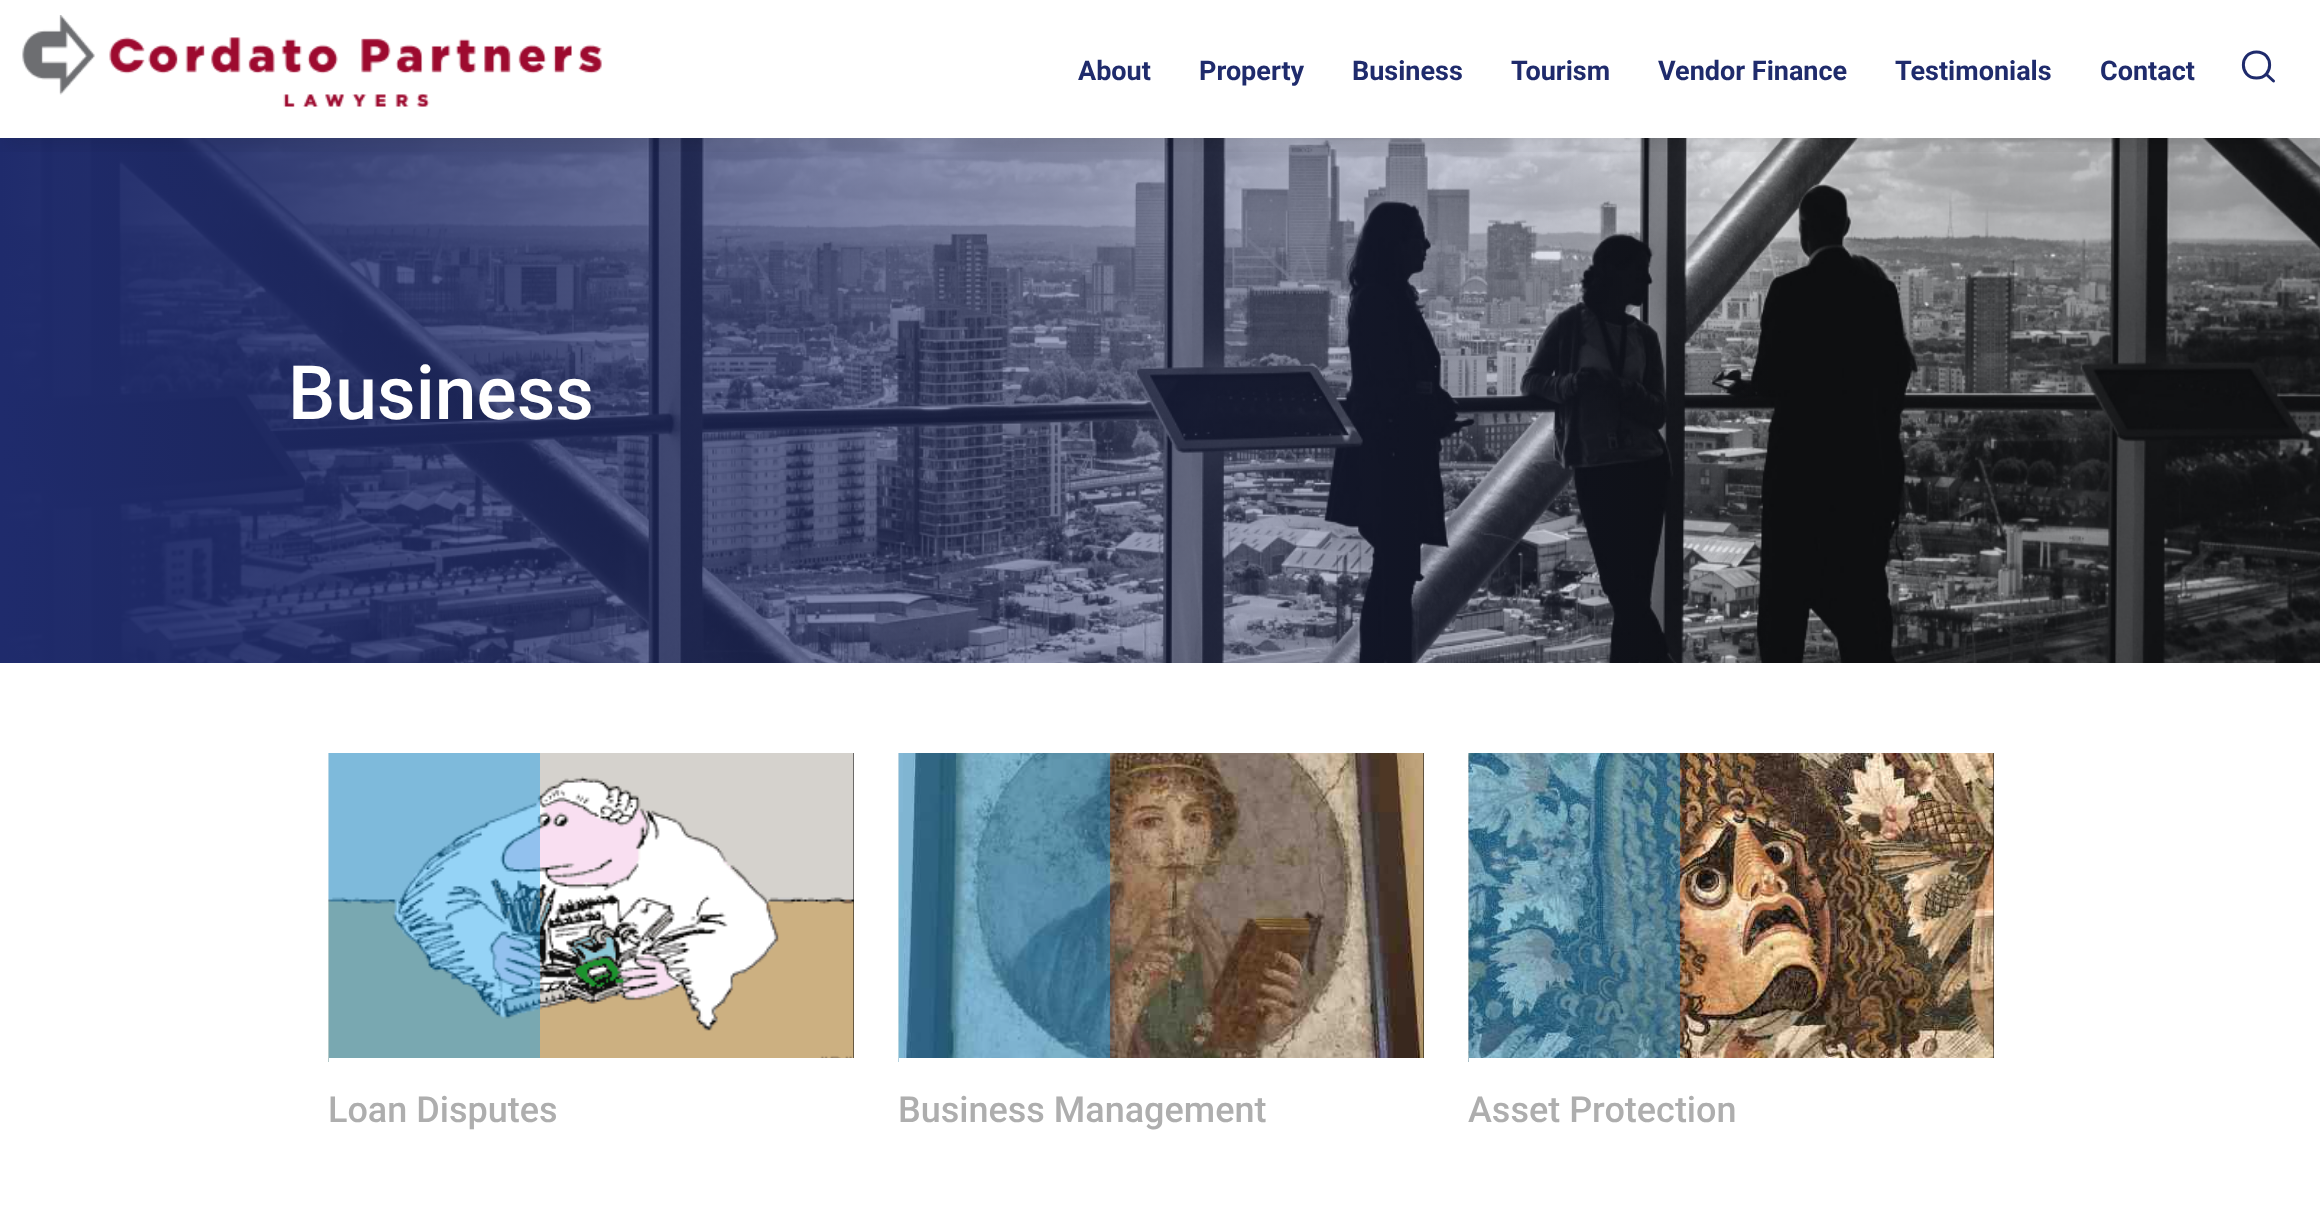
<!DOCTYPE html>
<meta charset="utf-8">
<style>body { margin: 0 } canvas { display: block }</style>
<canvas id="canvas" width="2320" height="1222"></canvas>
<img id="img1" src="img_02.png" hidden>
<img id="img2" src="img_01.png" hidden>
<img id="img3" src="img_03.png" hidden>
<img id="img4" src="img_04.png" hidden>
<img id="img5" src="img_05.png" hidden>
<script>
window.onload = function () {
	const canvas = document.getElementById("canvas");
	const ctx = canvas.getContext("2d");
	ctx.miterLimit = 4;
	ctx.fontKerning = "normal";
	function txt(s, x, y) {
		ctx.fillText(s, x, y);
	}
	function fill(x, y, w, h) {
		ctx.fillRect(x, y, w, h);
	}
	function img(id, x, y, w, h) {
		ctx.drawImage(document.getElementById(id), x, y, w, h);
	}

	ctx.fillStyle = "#FFFFFF";
	fill(0, 0, 2320, 1222);
	img("img1", 0, 138, 2320, 525);
	ctx.save();
	ctx.beginPath();
	ctx.rect(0, 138, 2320, 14);
	ctx.clip();
	ctx.fillStyle = "rgba(0, 0, 0, 0.1)";
	ctx.filter = "blur(10px)";
	ctx.beginPath();
	ctx.rect(5, 15, 2311, 129);
	ctx.fill();
	ctx.filter = "none";
	ctx.restore();
	img("img2", 22, 15, 580, 92);
	ctx.beginPath();
	ctx.moveTo(2256.5, 78);
	ctx.bezierCurveTo(2274, 78, 2274, 52, 2256.5, 52);
	ctx.bezierCurveTo(2239, 52, 2239, 78, 2256.5, 78);
	ctx.closePath();
	ctx.moveTo(2273.5, 81);
	ctx.lineTo(2266, 74);
	ctx.strokeStyle = "#1F2B6C";
	ctx.lineWidth = 3;
	ctx.lineCap = "round";
	ctx.lineJoin = "round";
	ctx.stroke();
	ctx.fillStyle = "#000000";
	fill(853, 753, 1, 305);
	img("img3", 328, 753, 526, 309);
	ctx.fillStyle = "#FFFFFF";
	fill(329, 1058, 525, 4);
	ctx.fillStyle = "#000000";
	fill(1423, 753, 1, 305);
	img("img4", 898, 753, 526, 309);
	ctx.fillStyle = "#FFFFFF";
	fill(899, 1058, 525, 4);
	ctx.fillStyle = "#000000";
	fill(1993, 753, 1, 305);
	img("img5", 1468, 753, 526, 309);
	ctx.fillStyle = "#FFFFFF";
	fill(1469, 1058, 525, 4);
	ctx.font = "bold 27px Roboto";
	ctx.fillStyle = "#1F2B6C";
	txt("About", 1078, 80);
	txt("Property", 1199, 80);
	txt("Business", 1352, 80);
	txt("Tourism", 1511, 80);
	txt("Vendor Finance", 1658, 80);
	txt("Testimonials", 1895, 80);
	txt("Contact", 2100, 80);
	ctx.font = "500 75px Roboto";
	ctx.fillStyle = "#FFFFFF";
	txt("Business", 288, 419);
	ctx.font = "500 36px Roboto";
	ctx.fillStyle = "#AEAEAE";
	txt("Loan Disputes", 328, 1122);
	txt("Business Management", 898, 1122);
	txt("Asset Protection", 1468, 1122);
};
</script>
